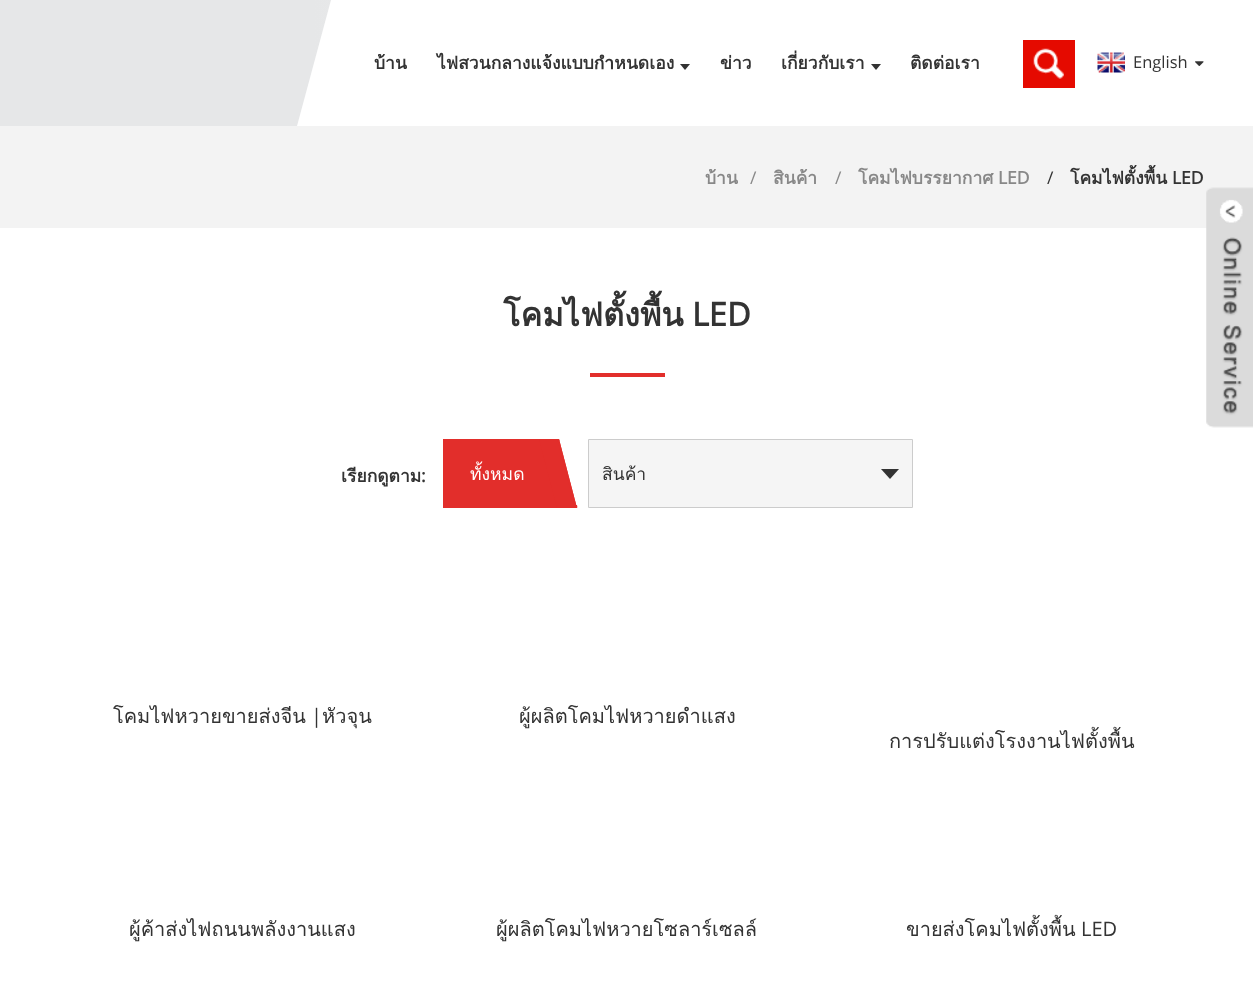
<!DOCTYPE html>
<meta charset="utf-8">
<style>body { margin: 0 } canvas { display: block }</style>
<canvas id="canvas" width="1253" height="987"></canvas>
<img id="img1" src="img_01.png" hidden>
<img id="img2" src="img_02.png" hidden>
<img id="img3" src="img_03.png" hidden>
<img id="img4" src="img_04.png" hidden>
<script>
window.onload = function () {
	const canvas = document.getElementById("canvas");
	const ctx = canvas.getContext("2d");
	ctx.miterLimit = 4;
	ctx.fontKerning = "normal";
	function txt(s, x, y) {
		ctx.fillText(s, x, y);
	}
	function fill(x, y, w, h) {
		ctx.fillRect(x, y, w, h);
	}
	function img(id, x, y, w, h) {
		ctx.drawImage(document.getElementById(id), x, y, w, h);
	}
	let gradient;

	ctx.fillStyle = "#FFFFFF";
	fill(0, 0, 1253, 987);
	gradient = ctx.createLinearGradient(0, 63, 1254, 63);
	gradient.addColorStop(0.25, "#E6E7E8");
	gradient.addColorStop(0.75, "#FFFFFF");
	ctx.fillStyle = gradient;
	fill(0, 0, 878, 126);
	ctx.fillStyle = "#FFFFFF";
	fill(353, 0, 525, 126);
	ctx.beginPath();
	ctx.moveTo(331, 0);
	ctx.lineTo(387, 0);
	ctx.lineTo(353, 126);
	ctx.lineTo(297, 126);
	ctx.closePath();
	ctx.fill();
	ctx.fillStyle = "#333333";
	ctx.beginPath();
	ctx.moveTo(680, 64);
	ctx.lineTo(690, 64);
	ctx.lineTo(685, 70);
	ctx.closePath();
	ctx.fill();
	ctx.beginPath();
	ctx.moveTo(871, 64);
	ctx.lineTo(881, 64);
	ctx.lineTo(876, 70);
	ctx.closePath();
	ctx.fill();
	ctx.fillStyle = "#E50A00";
	fill(1023, 40, 52, 48);
	img("img1", 1033, 48, 31, 31);
	img("img2", 1097, 52, 28, 21);
	img("img3", 1195, 61, 9, 5);
	ctx.fillStyle = "#F3F3F3";
	fill(0, 126, 1253, 102);
	ctx.fillStyle = "#E22E2B";
	fill(590, 373, 75, 4);
	fill(443, 439, 114, 69);
	ctx.beginPath();
	ctx.moveTo(539, 439);
	ctx.lineTo(559, 439);
	ctx.lineTo(577, 508);
	ctx.lineTo(557, 508);
	ctx.closePath();
	ctx.fill();
	ctx.beginPath();
	ctx.moveTo(539, 439);
	ctx.lineTo(559, 439);
	ctx.lineTo(559.5, 441);
	ctx.lineTo(539.5, 441);
	ctx.closePath();
	ctx.fill();
	ctx.beginPath();
	ctx.moveTo(557, 439);
	ctx.lineTo(559, 439);
	ctx.lineTo(577, 508);
	ctx.lineTo(575, 508);
	ctx.closePath();
	ctx.fill();
	ctx.beginPath();
	ctx.moveTo(557, 505);
	ctx.lineTo(577, 505);
	ctx.lineTo(577.5, 507.5);
	ctx.lineTo(557.5, 507.5);
	ctx.closePath();
	ctx.fill();
	ctx.fillStyle = "#F5F5F5";
	ctx.beginPath();
	ctx.rect(588.5, 439.5, 324, 68);
	ctx.fill();
	ctx.strokeStyle = "#CCCCCC";
	ctx.stroke();
	ctx.fillStyle = "#333333";
	ctx.beginPath();
	ctx.moveTo(881, 469);
	ctx.lineTo(899, 469);
	ctx.lineTo(890, 479);
	ctx.closePath();
	ctx.fill();
	img("img4", 1206, 187, 47, 241);
	ctx.font = "bold 17.5px Loma";
	txt("บ้าน", 374, 69);
	txt("ไฟสวนกลางแจ้งแบบกำหนดเอง", 437, 69);
	txt("ข่าว", 720, 69);
	txt("เกี่ยวกับเรา", 781, 69);
	txt("ติดต่อเรา", 910, 69);
	ctx.font = "16.5px Open Sans";
	txt("English", 1133, 68);
	ctx.font = "bold 17.5px Loma";
	ctx.fillStyle = "#888888";
	txt("บ้าน", 705, 184);
	ctx.font = "17.5px Open Sans";
	txt("/", 750, 184);
	ctx.font = "bold 17.5px Loma";
	txt("สินค้า", 773, 184);
	ctx.font = "17.5px Open Sans";
	txt("/", 835, 184);
	ctx.font = "bold 17.5px Loma";
	txt("โคมไฟบรรยากาศ", 858, 184);
	ctx.font = "bold 17.5px Open Sans";
	txt("LED", 998, 184);
	ctx.font = "17.5px Open Sans";
	ctx.fillStyle = "#333333";
	txt("/", 1047, 184);
	ctx.font = "bold 17.5px Loma";
	txt("โคมไฟตั้งพื้น", 1070, 184);
	ctx.font = "bold 17.5px Open Sans";
	txt("LED", 1172, 184);
	ctx.font = "bold 32.5px Loma";
	txt("โคมไฟตั้งพื้น", 503, 326);
	ctx.font = "bold 32.5px Open Sans";
	txt("LED", 692, 326);
	ctx.font = "bold 17.5px Loma";
	txt("เรียกดูตาม", 341, 482);
	ctx.font = "bold 17.5px Open Sans";
	txt(":", 421, 482);
	ctx.font = "17.5px Loma";
	ctx.fillStyle = "#FFFFFF";
	txt("ทั้งหมด", 470, 480);
	ctx.fillStyle = "#333333";
	txt("สินค้า", 602, 480);
	ctx.font = "20px Loma";
	txt("โคมไฟหวายขายส่งจีน", 113, 723);
	ctx.font = "20px Open Sans";
	txt("|", 311, 723);
	ctx.font = "20px Loma";
	txt("หัวจุน", 322, 723);
	txt("ผู้ผลิตโคมไฟหวายดำแสง", 519, 723);
	txt("การปรับแต่งโรงงานไฟตั้งพื้น", 889, 748);
	txt("ผู้ค้าส่งไฟถนนพลังงานแสง", 129, 936);
	txt("ผู้ผลิตโคมไฟหวายโซลาร์เซลล์", 496, 936);
	txt("ขายส่งโคมไฟตั้งพื้น", 906, 936);
	ctx.font = "20px Open Sans";
	txt("LED", 1081, 936);
};
</script>
